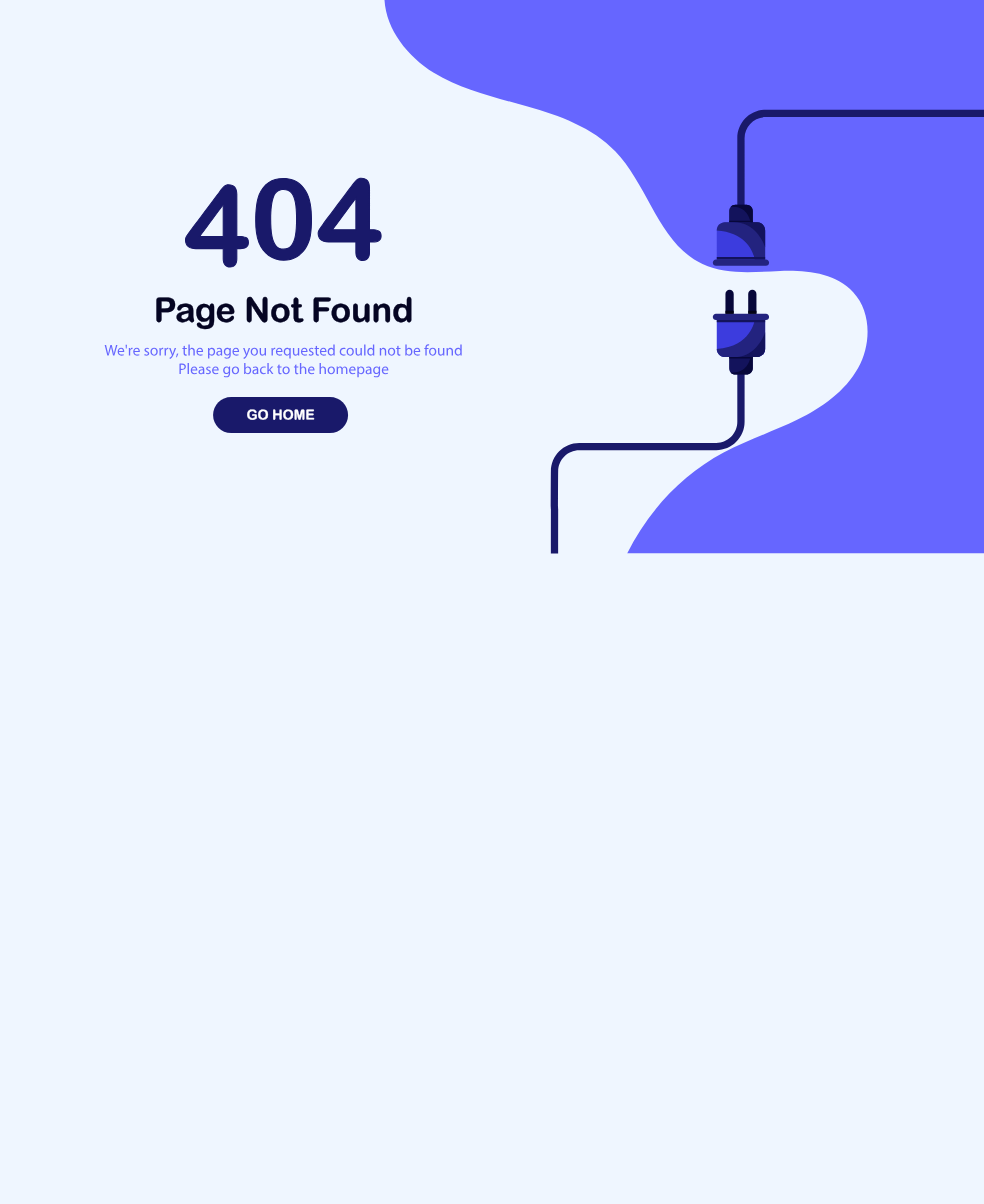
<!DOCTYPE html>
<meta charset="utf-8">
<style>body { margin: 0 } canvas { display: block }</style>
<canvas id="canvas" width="984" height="1204"></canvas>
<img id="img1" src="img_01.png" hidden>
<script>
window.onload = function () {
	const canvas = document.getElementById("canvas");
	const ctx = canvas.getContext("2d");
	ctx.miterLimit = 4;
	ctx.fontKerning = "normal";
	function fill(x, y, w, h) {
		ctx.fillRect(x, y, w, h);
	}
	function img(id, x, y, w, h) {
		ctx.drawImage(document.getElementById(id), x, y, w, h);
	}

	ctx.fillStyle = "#EFF6FF";
	fill(0, 0, 984, 1204);
	img("img1", 104, 0, 880, 554);
};
</script>
